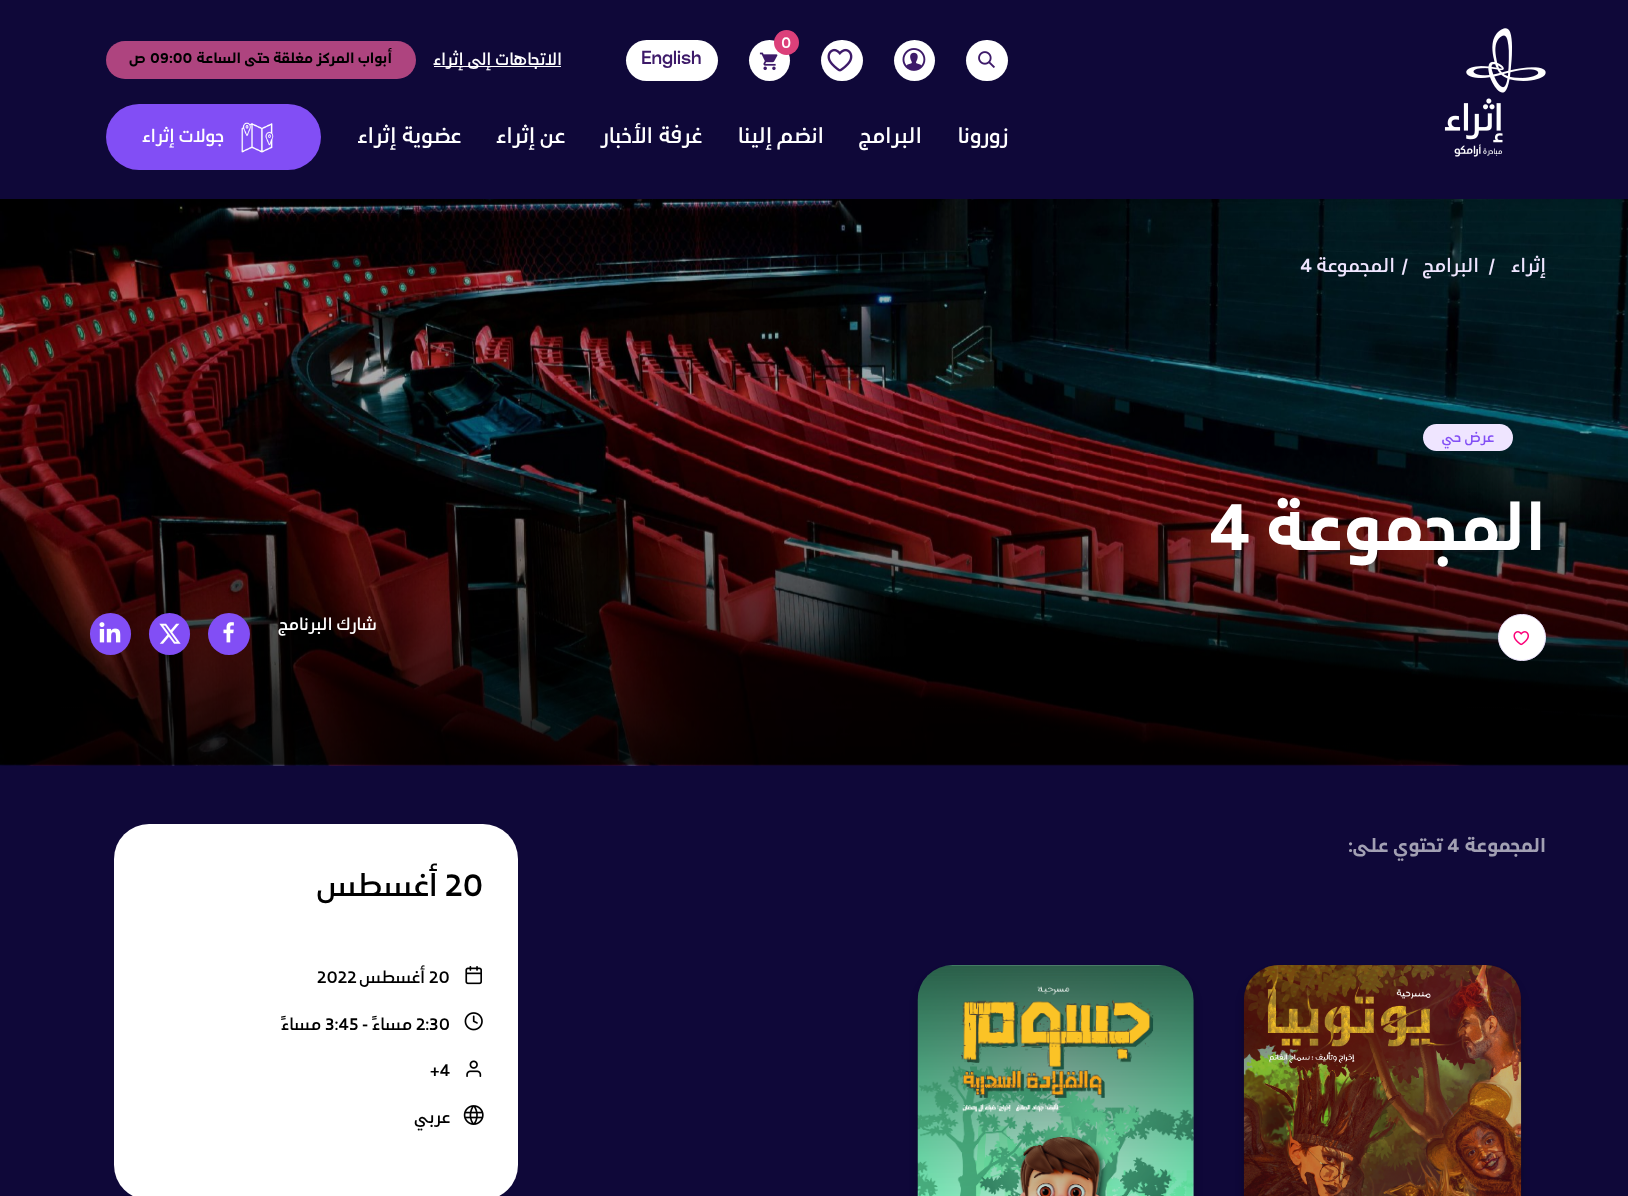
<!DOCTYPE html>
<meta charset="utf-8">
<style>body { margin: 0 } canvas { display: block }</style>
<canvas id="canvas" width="1628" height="1196"></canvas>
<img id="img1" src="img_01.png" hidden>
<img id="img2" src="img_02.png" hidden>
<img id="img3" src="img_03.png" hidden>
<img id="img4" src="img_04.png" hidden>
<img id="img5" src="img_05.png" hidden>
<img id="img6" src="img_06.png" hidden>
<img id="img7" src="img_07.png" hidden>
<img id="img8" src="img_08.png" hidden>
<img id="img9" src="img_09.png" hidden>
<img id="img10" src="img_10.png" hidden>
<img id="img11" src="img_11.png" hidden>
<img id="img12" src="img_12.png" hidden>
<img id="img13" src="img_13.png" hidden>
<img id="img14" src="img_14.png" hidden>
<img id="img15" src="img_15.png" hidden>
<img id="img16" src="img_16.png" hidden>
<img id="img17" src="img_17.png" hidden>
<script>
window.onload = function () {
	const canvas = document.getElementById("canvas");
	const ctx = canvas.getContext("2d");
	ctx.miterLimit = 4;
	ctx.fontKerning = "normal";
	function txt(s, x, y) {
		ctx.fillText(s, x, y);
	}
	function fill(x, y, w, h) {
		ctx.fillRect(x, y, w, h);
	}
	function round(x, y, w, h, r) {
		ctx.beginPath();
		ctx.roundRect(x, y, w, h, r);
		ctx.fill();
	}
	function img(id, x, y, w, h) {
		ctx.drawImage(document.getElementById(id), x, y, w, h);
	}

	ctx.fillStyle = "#0F0839";
	fill(0, 0, 1628, 1196);
	img("img1", 1444, 28, 102, 129);
	ctx.fillStyle = "#FFFFFF";
	round(966, 40, 42, 41, 20.5);
	img("img2", 978, 51, 17, 17);
	ctx.beginPath();
	ctx.arc(914.5, 60.5, 20.5, 0, Math.PI * 2);
	ctx.fill();
	img("img3", 902, 48, 24, 23);
	round(821, 40, 42, 41, 20.5);
	img("img4", 827, 48, 26, 24);
	ctx.beginPath();
	ctx.arc(769.5, 60.5, 20.5, 0, Math.PI * 2);
	ctx.fill();
	img("img5", 759, 52, 19, 19);
	ctx.fillStyle = "#DC407A";
	ctx.beginPath();
	ctx.arc(786.5, 42.5, 12.5, 0, Math.PI * 2);
	ctx.fill();
	ctx.fillStyle = "#FFFFFF";
	round(626, 40, 92, 41, 20.5);
	fill(434, 66, 127, 1);
	ctx.fillStyle = "#AE447F";
	round(106, 41, 310, 38, 19);
	ctx.fillStyle = "#824EF5";
	round(106, 104, 215, 66, 33);
	img("img6", 241, 122, 33, 31);
	img("img7", 0, 199, 1628, 567);
	ctx.fillStyle = "#EFE5FF";
	round(1423, 424, 90, 27, 13.5);
	ctx.fillStyle = "#FFFFFF";
	ctx.beginPath();
	ctx.roundRect(1498.5, 614.5, 47, 46, 23);
	ctx.fill();
	ctx.strokeStyle = "#EFE5FF";
	ctx.stroke();
	img("img8", 1513, 631, 16, 15);
	ctx.fillStyle = "#824EF5";
	ctx.beginPath();
	ctx.arc(229, 634, 21, 0, Math.PI * 2);
	ctx.fill();
	img("img9", 223, 622, 11, 21);
	round(149, 613, 41, 42, 20.5);
	img("img10", 159, 623, 22, 21);
	round(90, 613, 41, 42, 20.5);
	img("img11", 99, 622, 22, 21);
	ctx.fillStyle = "rgba(0, 0, 0, 0.25)";
	ctx.filter = "blur(4px)";
	ctx.beginPath();
	ctx.roundRect(1244, 973, 277, 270, 35);
	ctx.fill();
	ctx.filter = "none";
	img("img12", 1243, 965, 279, 231);
	ctx.filter = "blur(4px)";
	ctx.beginPath();
	ctx.roundRect(918, 973, 276, 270, 35);
	ctx.fill();
	ctx.filter = "none";
	img("img13", 917, 965, 277, 231);
	ctx.fillStyle = "#FFFFFF";
	round(114, 824, 404, 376, 35);
	img("img14", 465, 966, 17, 19);
	img("img15", 464, 1012, 19, 19);
	img("img16", 466, 1060, 16, 17);
	img("img17", 463, 1105, 21, 20);
	ctx.font = "500 15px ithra";
	txt("0", 781, 48);
	ctx.font = "500 18.75px ithra";
	ctx.fillStyle = "#3D1A69";
	txt("English", 641, 64);
	ctx.direction = "rtl";
	ctx.font = "500 16.5px ithra";
	ctx.fillStyle = "#FFFFFF";
	txt("الاتجاهات إلى إثراء", 562, 65);
	ctx.font = "bold 14px ithra";
	ctx.fillStyle = "#000000";
	txt("أبواب المركز مغلقة حتى الساعة", 392, 63);
	ctx.direction = "ltr";
	txt("09:00", 150, 63);
	ctx.direction = "rtl";
	txt("ص", 146, 63);
	ctx.font = "500 21px ithra";
	ctx.fillStyle = "#FFFFFF";
	txt("زورونا", 1008, 143);
	txt("البرامج", 922, 143);
	txt("انضم إلينا", 824, 143);
	txt("غرفة الأخبار", 702, 143);
	txt("عن إثراء", 565, 143);
	txt("عضوية إثراء", 461, 143);
	ctx.font = "500 17.5px ithra";
	txt("جولات إثراء", 224, 142);
	ctx.font = "500 18.75px ithra";
	ctx.fillStyle = "#EFE5FF";
	txt("إثراء", 1546, 272);
	ctx.direction = "ltr";
	txt("/", 1489, 272);
	ctx.direction = "rtl";
	txt("البرامج", 1479, 272);
	ctx.direction = "ltr";
	txt("/", 1402, 272);
	ctx.direction = "rtl";
	txt("المجموعة", 1395, 272);
	ctx.direction = "ltr";
	txt("4", 1300, 272);
	ctx.direction = "rtl";
	ctx.font = "500 14px ithra";
	ctx.fillStyle = "#824EF5";
	txt("عرض حي", 1494, 442);
	ctx.font = "bold 64.5px ithra";
	ctx.fillStyle = "#FFFFFF";
	txt("المجموعة", 1546, 550);
	ctx.direction = "ltr";
	txt("4", 1208, 550);
	ctx.direction = "rtl";
	ctx.font = "500 16.5px ithra";
	txt("شارك البرنامج", 377, 630);
	ctx.font = "bold 18.75px ithra";
	ctx.fillStyle = "#A2A0B3";
	txt("المجموعة", 1546, 852);
	ctx.direction = "ltr";
	txt("4", 1447, 852);
	ctx.direction = "rtl";
	txt("تحتوي على:", 1443, 852);
	ctx.direction = "ltr";
	ctx.font = "500 30.5px ithra";
	ctx.fillStyle = "#000000";
	txt("20", 445, 896);
	ctx.direction = "rtl";
	txt("أغسطس", 438, 896);
	ctx.direction = "ltr";
	ctx.font = "500 16.5px ithra";
	txt("20", 429, 983);
	ctx.direction = "rtl";
	txt("أغسطس", 425, 983);
	ctx.direction = "ltr";
	txt("2022", 317, 983);
	txt("2:30", 416, 1030);
	ctx.direction = "rtl";
	txt("مساءً -", 412, 1030);
	ctx.direction = "ltr";
	txt("3:45", 325, 1030);
	ctx.direction = "rtl";
	txt("مساءً", 321, 1030);
	ctx.direction = "ltr";
	txt("+4", 430, 1076);
	ctx.direction = "rtl";
	txt("عربي", 450, 1123);
};
</script>
